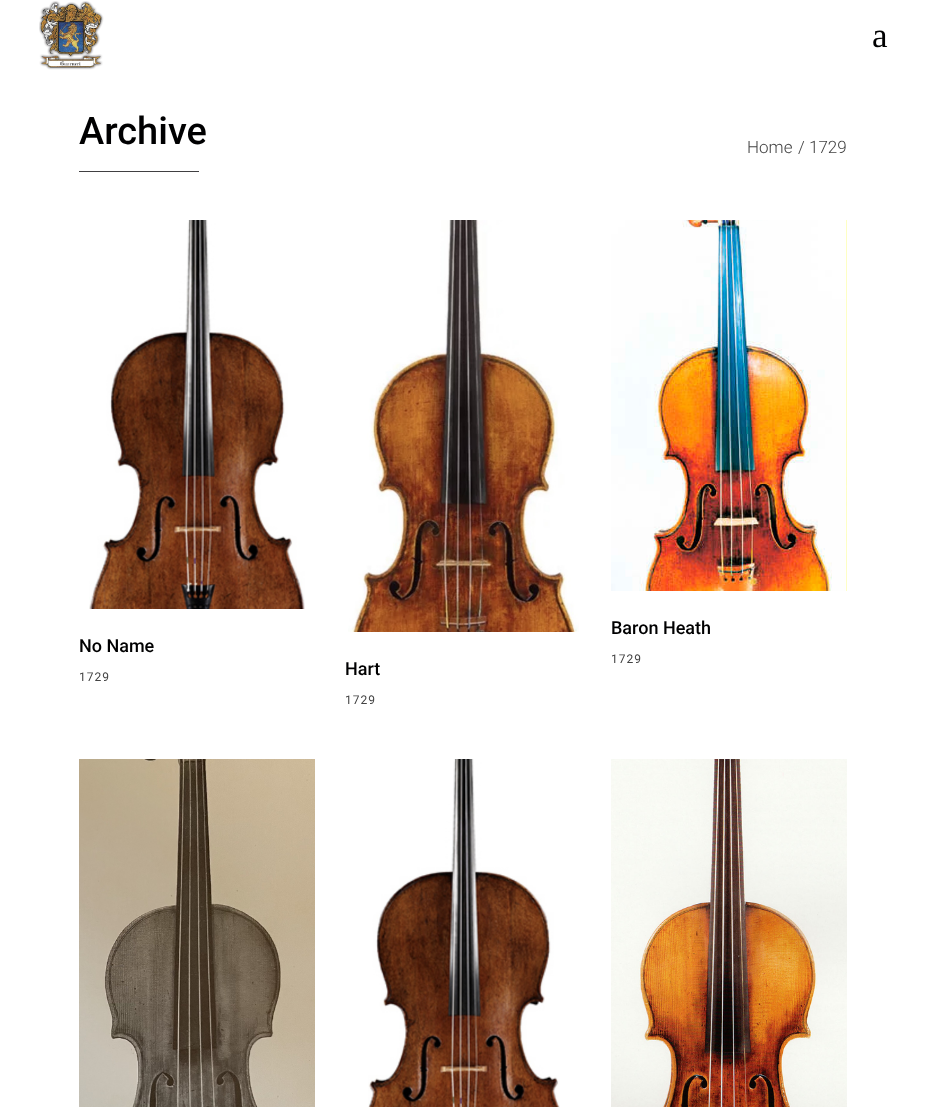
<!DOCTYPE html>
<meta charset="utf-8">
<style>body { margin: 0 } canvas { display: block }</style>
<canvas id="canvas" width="926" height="1107"></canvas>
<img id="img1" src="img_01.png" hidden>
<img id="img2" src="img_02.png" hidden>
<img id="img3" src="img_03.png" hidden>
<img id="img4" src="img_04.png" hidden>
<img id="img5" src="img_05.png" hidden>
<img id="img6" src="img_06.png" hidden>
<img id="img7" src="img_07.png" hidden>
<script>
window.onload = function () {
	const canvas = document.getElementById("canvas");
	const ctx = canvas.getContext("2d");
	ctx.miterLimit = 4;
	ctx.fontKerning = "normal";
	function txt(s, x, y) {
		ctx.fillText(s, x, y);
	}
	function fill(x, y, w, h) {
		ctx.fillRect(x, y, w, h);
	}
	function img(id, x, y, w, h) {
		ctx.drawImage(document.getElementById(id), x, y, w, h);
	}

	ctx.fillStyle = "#FFFFFF";
	fill(0, 0, 926, 1107);
	img("img1", 39, 1, 65, 69);
	ctx.fillStyle = "#414042";
	fill(79, 171, 120, 1);
	img("img2", 89, 220, 216, 389);
	img("img3", 348, 220, 231, 412);
	img("img4", 611, 220, 236, 371);
	img("img5", 79, 759, 236, 348);
	img("img6", 368, 759, 192, 348);
	img("img7", 611, 759, 236, 348);
	ctx.font = "35px Liberation Serif";
	ctx.fillStyle = "#000001";
	txt("a", 872, 47);
	ctx.font = "500 38px Roboto";
	txt("Archive", 79, 144);
	ctx.font = "300 17px Roboto";
	ctx.fillStyle = "#434343";
	txt("Home", 747, 153);
	txt("/", 798, 153);
	txt("1729", 809, 153);
	ctx.font = "500 18px Roboto";
	ctx.fillStyle = "#000001";
	txt("No Name", 79, 652);
	ctx.letterSpacing = "1px";
	ctx.font = "12px Roboto";
	ctx.fillStyle = "#434343";
	txt("1729", 79, 681);
	ctx.letterSpacing = "0px";
	ctx.font = "500 18px Roboto";
	ctx.fillStyle = "#000001";
	txt("Hart", 345, 675);
	ctx.letterSpacing = "1px";
	ctx.font = "12px Roboto";
	ctx.fillStyle = "#434343";
	txt("1729", 345, 704);
	ctx.letterSpacing = "0px";
	ctx.font = "500 18px Roboto";
	ctx.fillStyle = "#000001";
	txt("Baron Heath", 611, 634);
	ctx.letterSpacing = "1px";
	ctx.font = "12px Roboto";
	ctx.fillStyle = "#434343";
	txt("1729", 611, 663);
};
</script>
